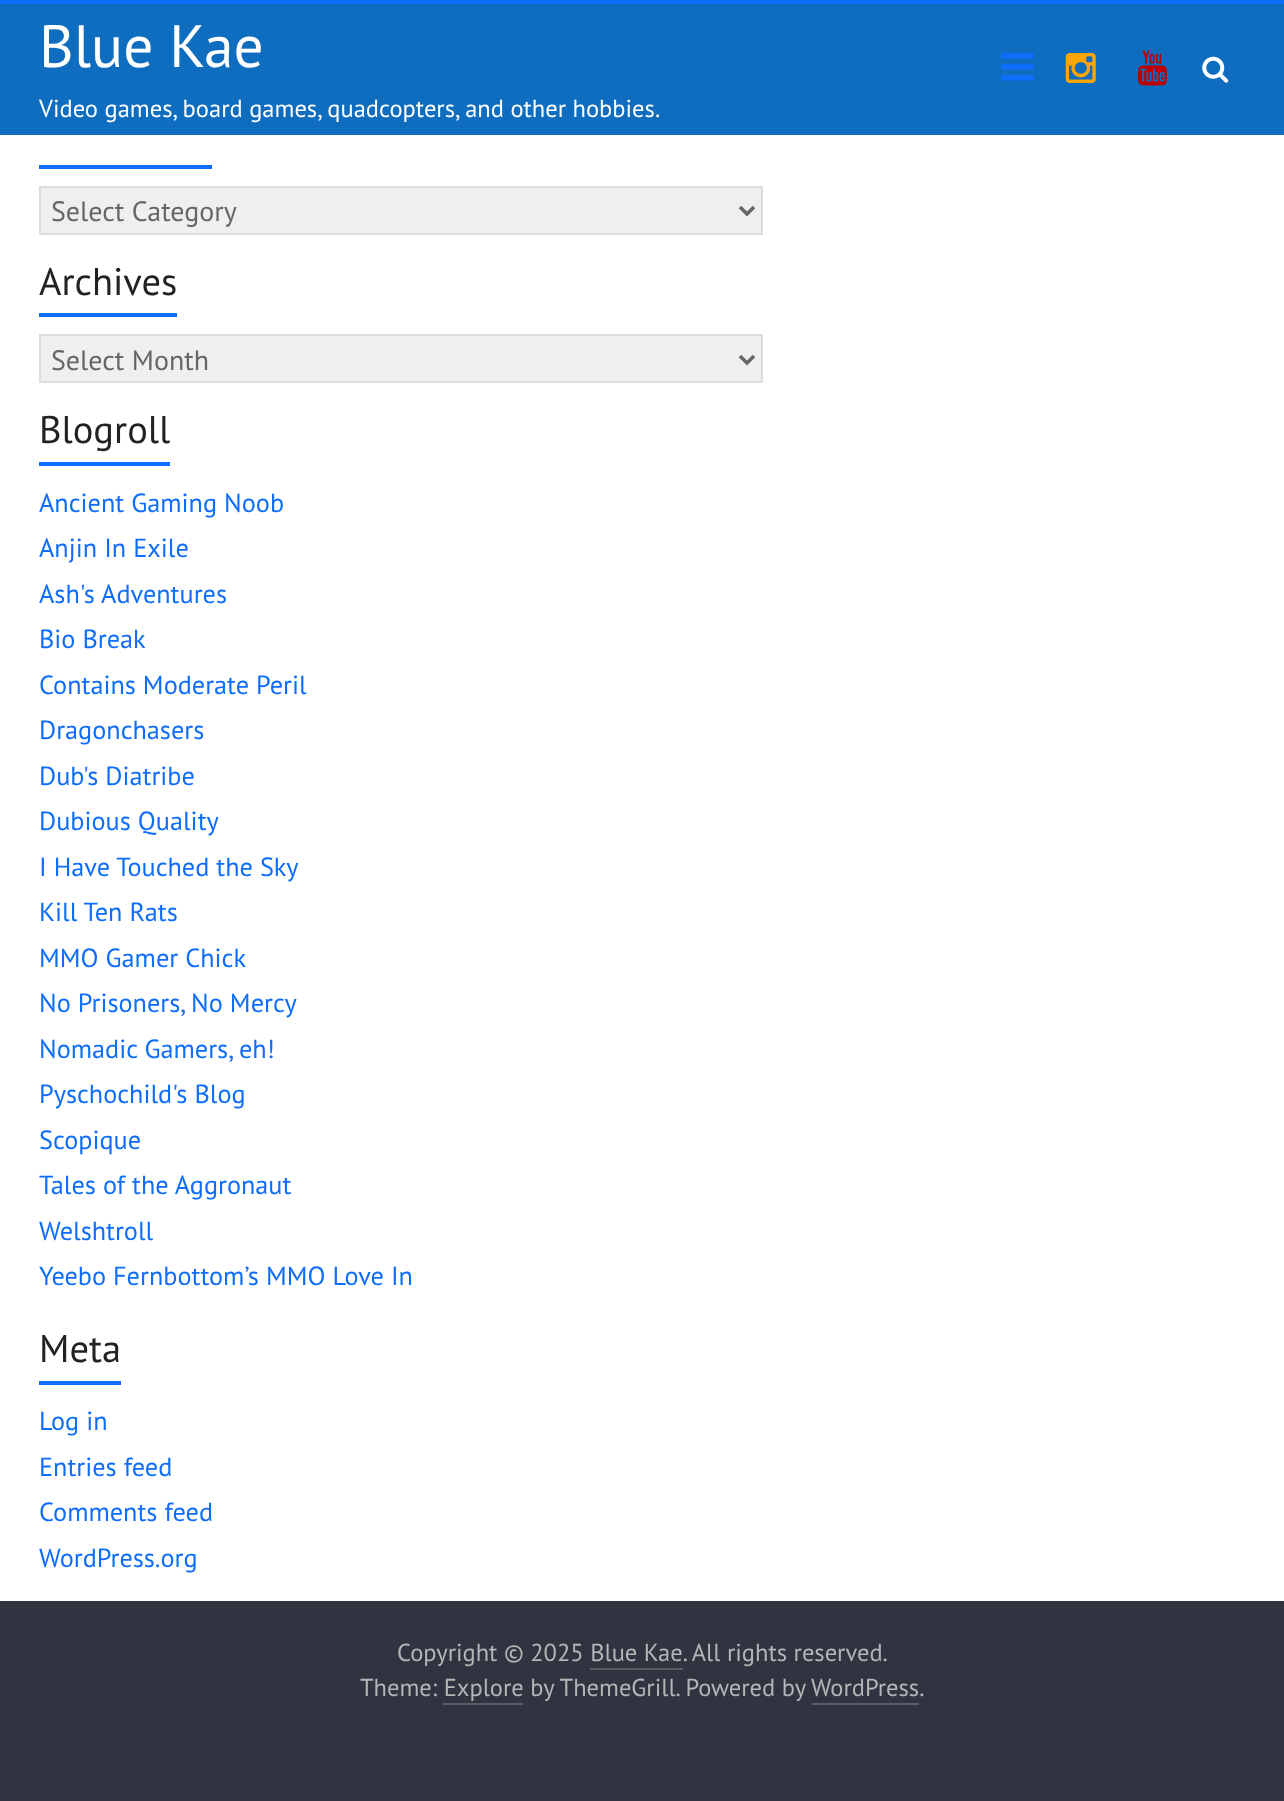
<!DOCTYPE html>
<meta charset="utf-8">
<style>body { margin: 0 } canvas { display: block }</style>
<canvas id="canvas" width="1284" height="1801"></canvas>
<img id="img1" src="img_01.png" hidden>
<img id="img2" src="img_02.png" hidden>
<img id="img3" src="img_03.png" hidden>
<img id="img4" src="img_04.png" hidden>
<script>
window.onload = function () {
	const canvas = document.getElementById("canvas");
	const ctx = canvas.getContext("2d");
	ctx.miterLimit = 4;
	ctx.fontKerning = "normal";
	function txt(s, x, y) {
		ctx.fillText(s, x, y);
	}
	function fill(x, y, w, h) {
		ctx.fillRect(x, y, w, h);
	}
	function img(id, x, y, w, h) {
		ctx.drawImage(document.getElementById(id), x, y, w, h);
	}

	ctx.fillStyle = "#FFFFFF";
	fill(0, 0, 1284, 1801);
	ctx.fillStyle = "#0F6DBF";
	fill(0, 4, 1284, 131);
	ctx.fillStyle = "#0F6DFB";
	fill(0, 0, 1284, 4);
	img("img1", 1001, 53, 33, 28);
	img("img2", 1065, 53, 31, 30);
	img("img3", 1138, 50, 29, 36);
	img("img4", 1202, 56, 27, 27);
	fill(39, 165, 173, 4);
	ctx.fillStyle = "#EFEFEF";
	ctx.beginPath();
	ctx.rect(40, 187, 722, 47);
	ctx.fill();
	ctx.strokeStyle = "#DDDDDD";
	ctx.lineWidth = 2;
	ctx.stroke();
	ctx.beginPath();
	ctx.moveTo(740, 207);
	ctx.lineTo(747, 214);
	ctx.lineTo(754, 207);
	ctx.strokeStyle = "#666666";
	ctx.lineWidth = 3.5;
	ctx.stroke();
	ctx.fillStyle = "#0F6DFB";
	fill(39, 313, 138, 4);
	ctx.fillStyle = "#EFEFEF";
	ctx.beginPath();
	ctx.rect(40, 335, 722, 47);
	ctx.fill();
	ctx.strokeStyle = "#DDDDDD";
	ctx.lineWidth = 2;
	ctx.stroke();
	ctx.beginPath();
	ctx.moveTo(740, 356);
	ctx.lineTo(747, 363);
	ctx.lineTo(754, 356);
	ctx.strokeStyle = "#666666";
	ctx.lineWidth = 3.5;
	ctx.stroke();
	ctx.fillStyle = "#0F6DFB";
	fill(39, 462, 131, 4);
	fill(39, 1381, 82, 4);
	ctx.fillStyle = "#303440";
	fill(0, 1601, 1284, 200);
	ctx.fillStyle = "#5A5D62";
	fill(590, 1668, 93, 2);
	fill(812, 1703, 107, 2);
	fill(443, 1703, 80, 2);
	ctx.font = "59.5px PT Sans";
	ctx.fillStyle = "#FFFFFF";
	txt("Blue Kae", 39, 67);
	ctx.font = "24.5px PT Sans";
	txt("Video games, board games, quadcopters, and other hobbies.", 39, 117);
	ctx.font = "28px PT Sans";
	ctx.fillStyle = "#666666";
	txt("Select Category", 51, 221);
	ctx.font = "38.5px PT Sans";
	ctx.fillStyle = "#222222";
	txt("Archives", 39, 295);
	ctx.font = "28px PT Sans";
	ctx.fillStyle = "#666666";
	txt("Select Month", 51, 370);
	ctx.font = "38.5px PT Sans";
	ctx.fillStyle = "#222222";
	txt("Blogroll", 39, 443);
	ctx.font = "26.25px PT Sans";
	ctx.fillStyle = "#0F6DFB";
	txt("Ancient Gaming Noob", 39, 512);
	txt("Anjin In Exile", 39, 557);
	txt("Ash's Adventures", 39, 603);
	txt("Bio Break", 39, 648);
	txt("Contains Moderate Peril", 39, 694);
	txt("Dragonchasers", 39, 739);
	txt("Dub's Diatribe", 39, 785);
	txt("Dubious Quality", 39, 830);
	txt("I Have Touched the Sky", 39, 876);
	txt("Kill Ten Rats", 39, 921);
	txt("MMO Gamer Chick", 39, 967);
	txt("No Prisoners, No Mercy", 39, 1012);
	txt("Nomadic Gamers, eh!", 39, 1058);
	txt("Pyschochild's Blog", 39, 1103);
	txt("Scopique", 39, 1149);
	txt("Tales of the Aggronaut", 39, 1194);
	txt("Welshtroll", 39, 1240);
	txt("Yeebo Fernbottom’s MMO Love In", 39, 1285);
	ctx.font = "38.5px PT Sans";
	ctx.fillStyle = "#222222";
	txt("Meta", 39, 1362);
	ctx.font = "26.25px PT Sans";
	ctx.fillStyle = "#0F6DFB";
	txt("Log in", 39, 1430);
	txt("Entries feed", 39, 1476);
	txt("Comments feed", 39, 1521);
	txt("WordPress.org", 39, 1567);
	ctx.font = "24.5px PT Sans";
	ctx.fillStyle = "#B1B6B6";
	txt("Copyright © 2025 Blue Kae. All rights reserved.", 397, 1661);
	txt("Theme: Explore by ThemeGrill. Powered by", 360, 1696);
	txt("WordPress.", 811, 1696);
};
</script>
